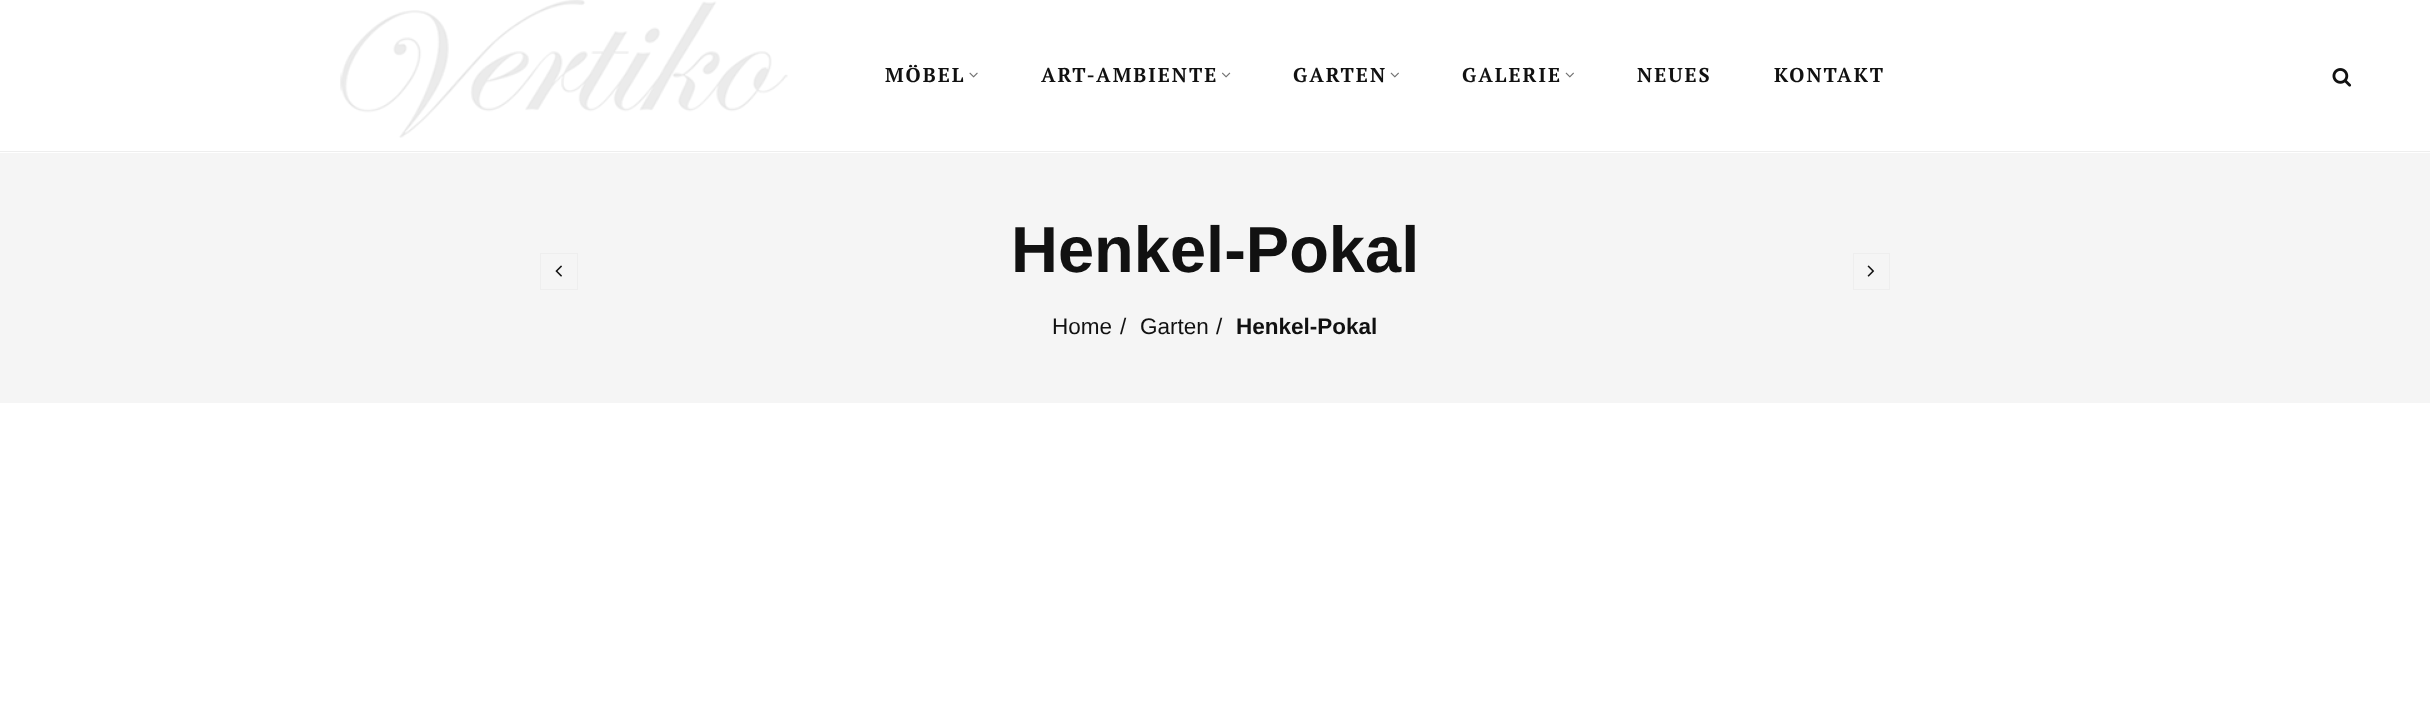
<!DOCTYPE html>
<meta charset="utf-8">
<style>body { margin: 0 } canvas { display: block }</style>
<canvas id="canvas" width="2430" height="714"></canvas>
<img id="img1" src="img_01.png" hidden>
<img id="img2" src="img_02.png" hidden>
<img id="img3" src="img_03.png" hidden>
<img id="img4" src="img_04.png" hidden>
<img id="img5" src="img_05.png" hidden>
<img id="img6" src="img_06.png" hidden>
<img id="img7" src="img_07.png" hidden>
<script>
window.onload = function () {
	const canvas = document.getElementById("canvas");
	const ctx = canvas.getContext("2d");
	ctx.miterLimit = 4;
	ctx.fontKerning = "normal";
	function txt(s, x, y) {
		ctx.fillText(s, x, y);
	}
	function fill(x, y, w, h) {
		ctx.fillRect(x, y, w, h);
	}
	function img(id, x, y, w, h) {
		ctx.drawImage(document.getElementById(id), x, y, w, h);
	}

	ctx.fillStyle = "#FFFFFF";
	fill(0, 0, 2430, 714);
	img("img1", 340, 0, 448, 138);
	ctx.fillStyle = "#EEEEEE";
	fill(0, 151, 2430, 1);
	img("img2", 969, 72, 9, 6);
	img("img3", 1222, 72, 9, 6);
	img("img4", 1390, 72, 9, 6);
	img("img4", 1565, 72, 9, 6);
	img("img5", 2332, 68, 20, 19);
	ctx.fillStyle = "#F5F5F5";
	fill(0, 153, 2430, 250);
	ctx.strokeStyle = "#EEEEEE";
	ctx.strokeRect(540.5, 253.5, 37, 36);
	img("img6", 555, 265, 7, 12);
	ctx.strokeRect(1853.5, 253.5, 36, 36);
	img("img7", 1867, 265, 8, 12);
	ctx.letterSpacing = "2px";
	ctx.font = "bold 20px PT Serif";
	ctx.fillStyle = "#111111";
	txt("MÖBEL", 885, 82);
	txt("ART-AMBIENTE", 1041, 82);
	txt("GARTEN", 1293, 82);
	txt("GALERIE", 1462, 82);
	txt("NEUES", 1637, 82);
	txt("KONTAKT", 1774, 82);
	ctx.letterSpacing = "0px";
	ctx.font = "bold 65px Liberation Sans";
	txt("Henkel-Pokal", 1011, 272);
	ctx.font = "22.5px Liberation Sans";
	txt("Home", 1052, 334);
	txt("/", 1120, 334);
	txt("Garten", 1140, 334);
	txt("/", 1216, 334);
	ctx.font = "bold 22.5px Liberation Sans";
	txt("Henkel-Pokal", 1236, 334);
};
</script>
